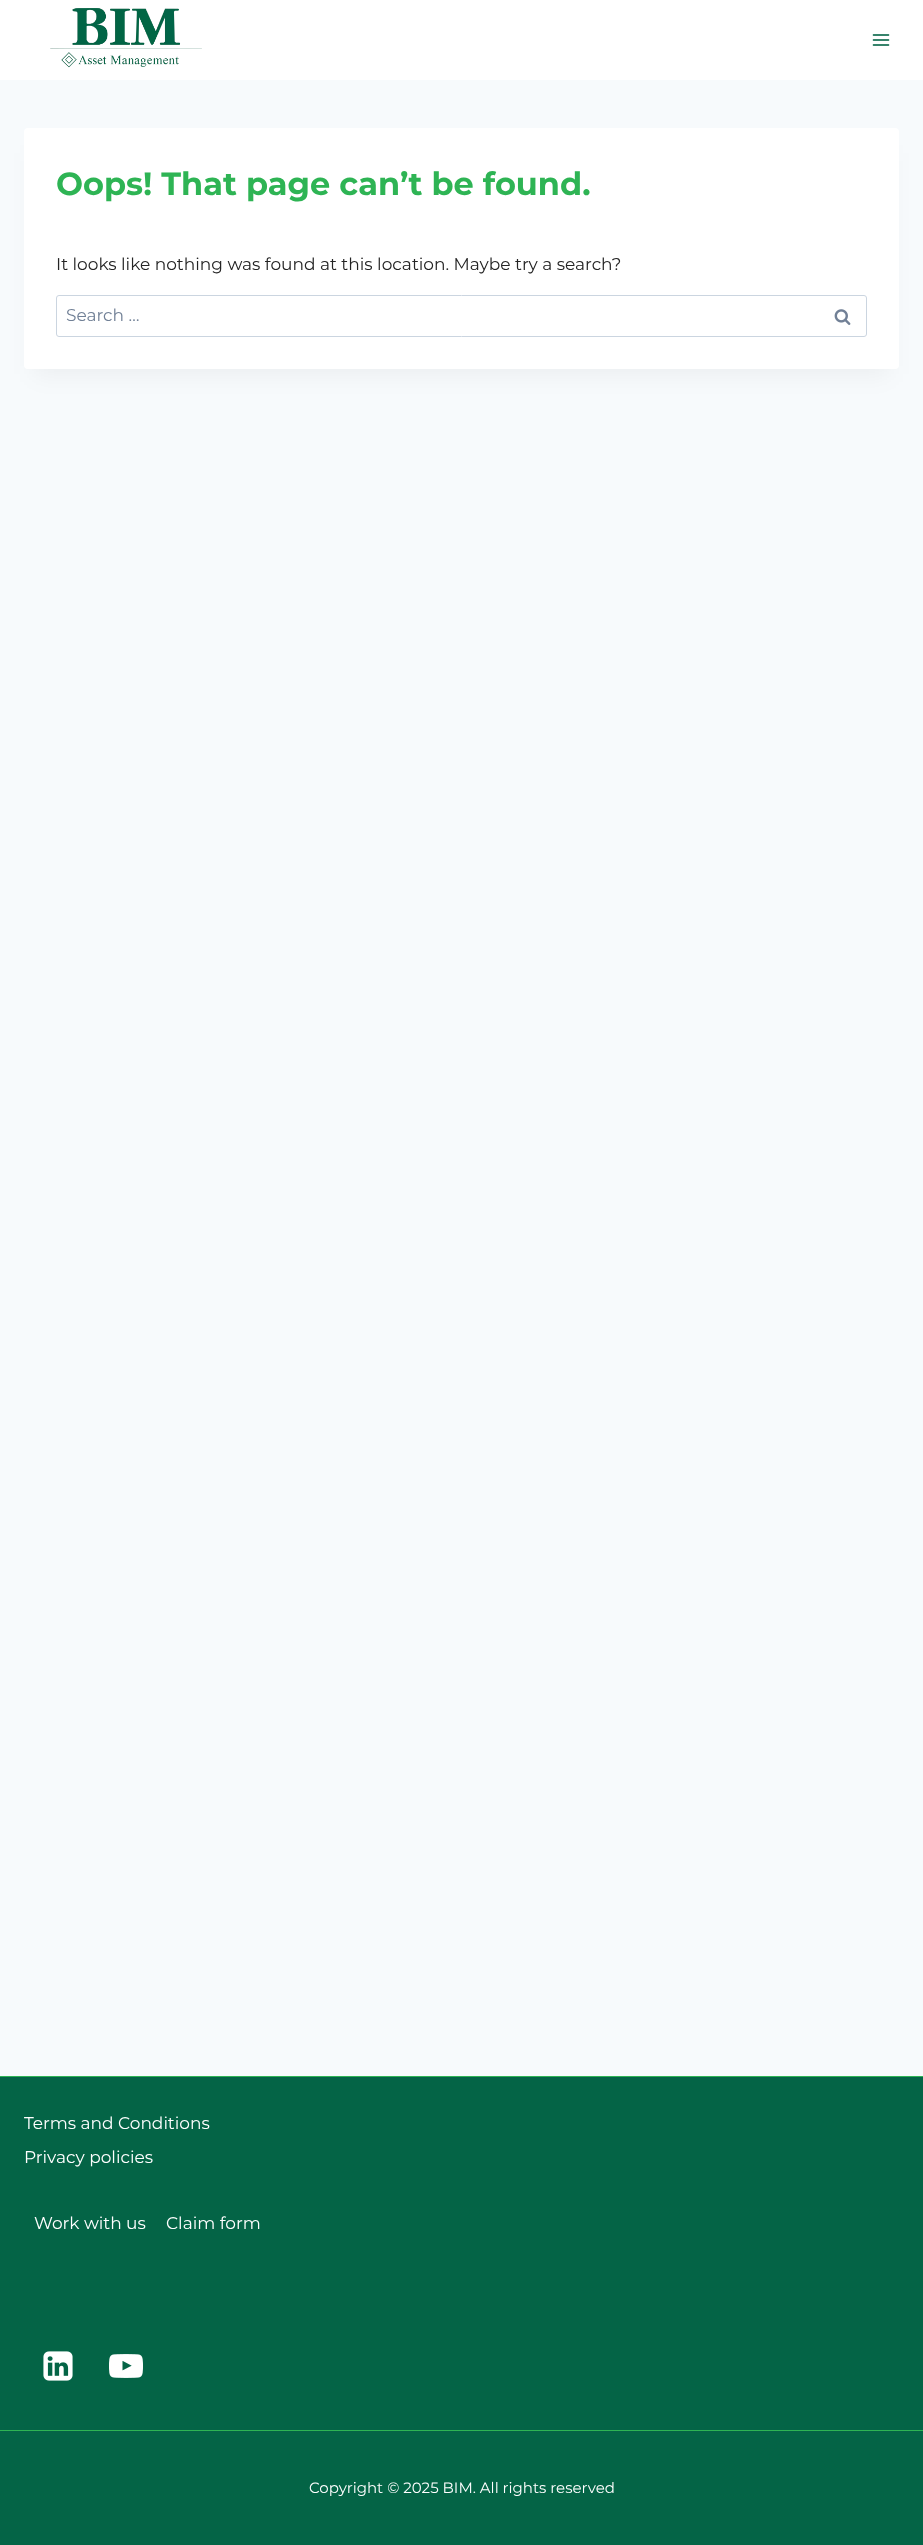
<!DOCTYPE html>
<meta charset="utf-8">
<style>body { margin: 0 } canvas { display: block }</style>
<canvas id="canvas" width="923" height="2545"></canvas>
<img id="img1" src="img_01.png" hidden>
<img id="img2" src="img_02.png" hidden>
<img id="img3" src="img_03.png" hidden>
<img id="img4" src="img_04.png" hidden>
<img id="img5" src="img_05.png" hidden>
<script>
window.onload = function () {
	const canvas = document.getElementById("canvas");
	const ctx = canvas.getContext("2d");
	ctx.miterLimit = 4;
	ctx.fontKerning = "normal";
	function txt(s, x, y) {
		ctx.fillText(s, x, y);
	}
	function fill(x, y, w, h) {
		ctx.fillRect(x, y, w, h);
	}
	function round(x, y, w, h, r) {
		ctx.beginPath();
		ctx.roundRect(x, y, w, h, r);
		ctx.fill();
	}
	function img(id, x, y, w, h) {
		ctx.drawImage(document.getElementById(id), x, y, w, h);
	}

	ctx.fillStyle = "#F7FAFC";
	fill(0, 0, 923, 2545);
	ctx.fillStyle = "#FFFFFF";
	fill(0, 0, 923, 80);
	img("img1", 50, 8, 152, 60);
	img("img2", 872, 34, 18, 12);
	ctx.fillStyle = "rgba(0, 0, 0, 0.05)";
	ctx.filter = "blur(12.5px)";
	ctx.beginPath();
	ctx.rect(34, 153, 855, 221);
	ctx.fill();
	ctx.filter = "none";
	ctx.fillStyle = "#FFFFFF";
	round(24, 128, 875, 241, 4);
	ctx.beginPath();
	ctx.roundRect(56.5, 295.5, 810, 41, 2.5);
	ctx.strokeStyle = "#CBD5E0";
	ctx.stroke();
	img("img3", 834, 309, 17, 16);
	ctx.fillStyle = "#046446";
	fill(0, 2077, 923, 353);
	ctx.fillStyle = "#2EB454";
	fill(0, 2076, 923, 1);
	img("img4", 43, 2351, 30, 30);
	img("img5", 109, 2354, 34, 24);
	ctx.fillStyle = "#046446";
	fill(0, 2431, 923, 114);
	ctx.fillStyle = "#2EB454";
	fill(0, 2430, 923, 1);
	ctx.font = "bold 32px Montserrat";
	txt("Oops! That page can’t be found.", 56, 195);
	ctx.font = "17px Montserrat";
	ctx.fillStyle = "#242424";
	txt("It looks like nothing was found at this location. Maybe try a search?", 56, 270);
	ctx.fillStyle = "#718096";
	txt("Search …", 66, 321);
	ctx.fillStyle = "#FFFFFF";
	txt("Terms and Conditions", 24, 2129);
	txt("Privacy policies", 24, 2163);
	txt("Work with us", 34, 2229);
	txt("Claim form", 166, 2229);
	ctx.font = "15px Montserrat";
	txt("Copyright © 2025 BIM. All rights reserved", 309, 2493);
};
</script>
